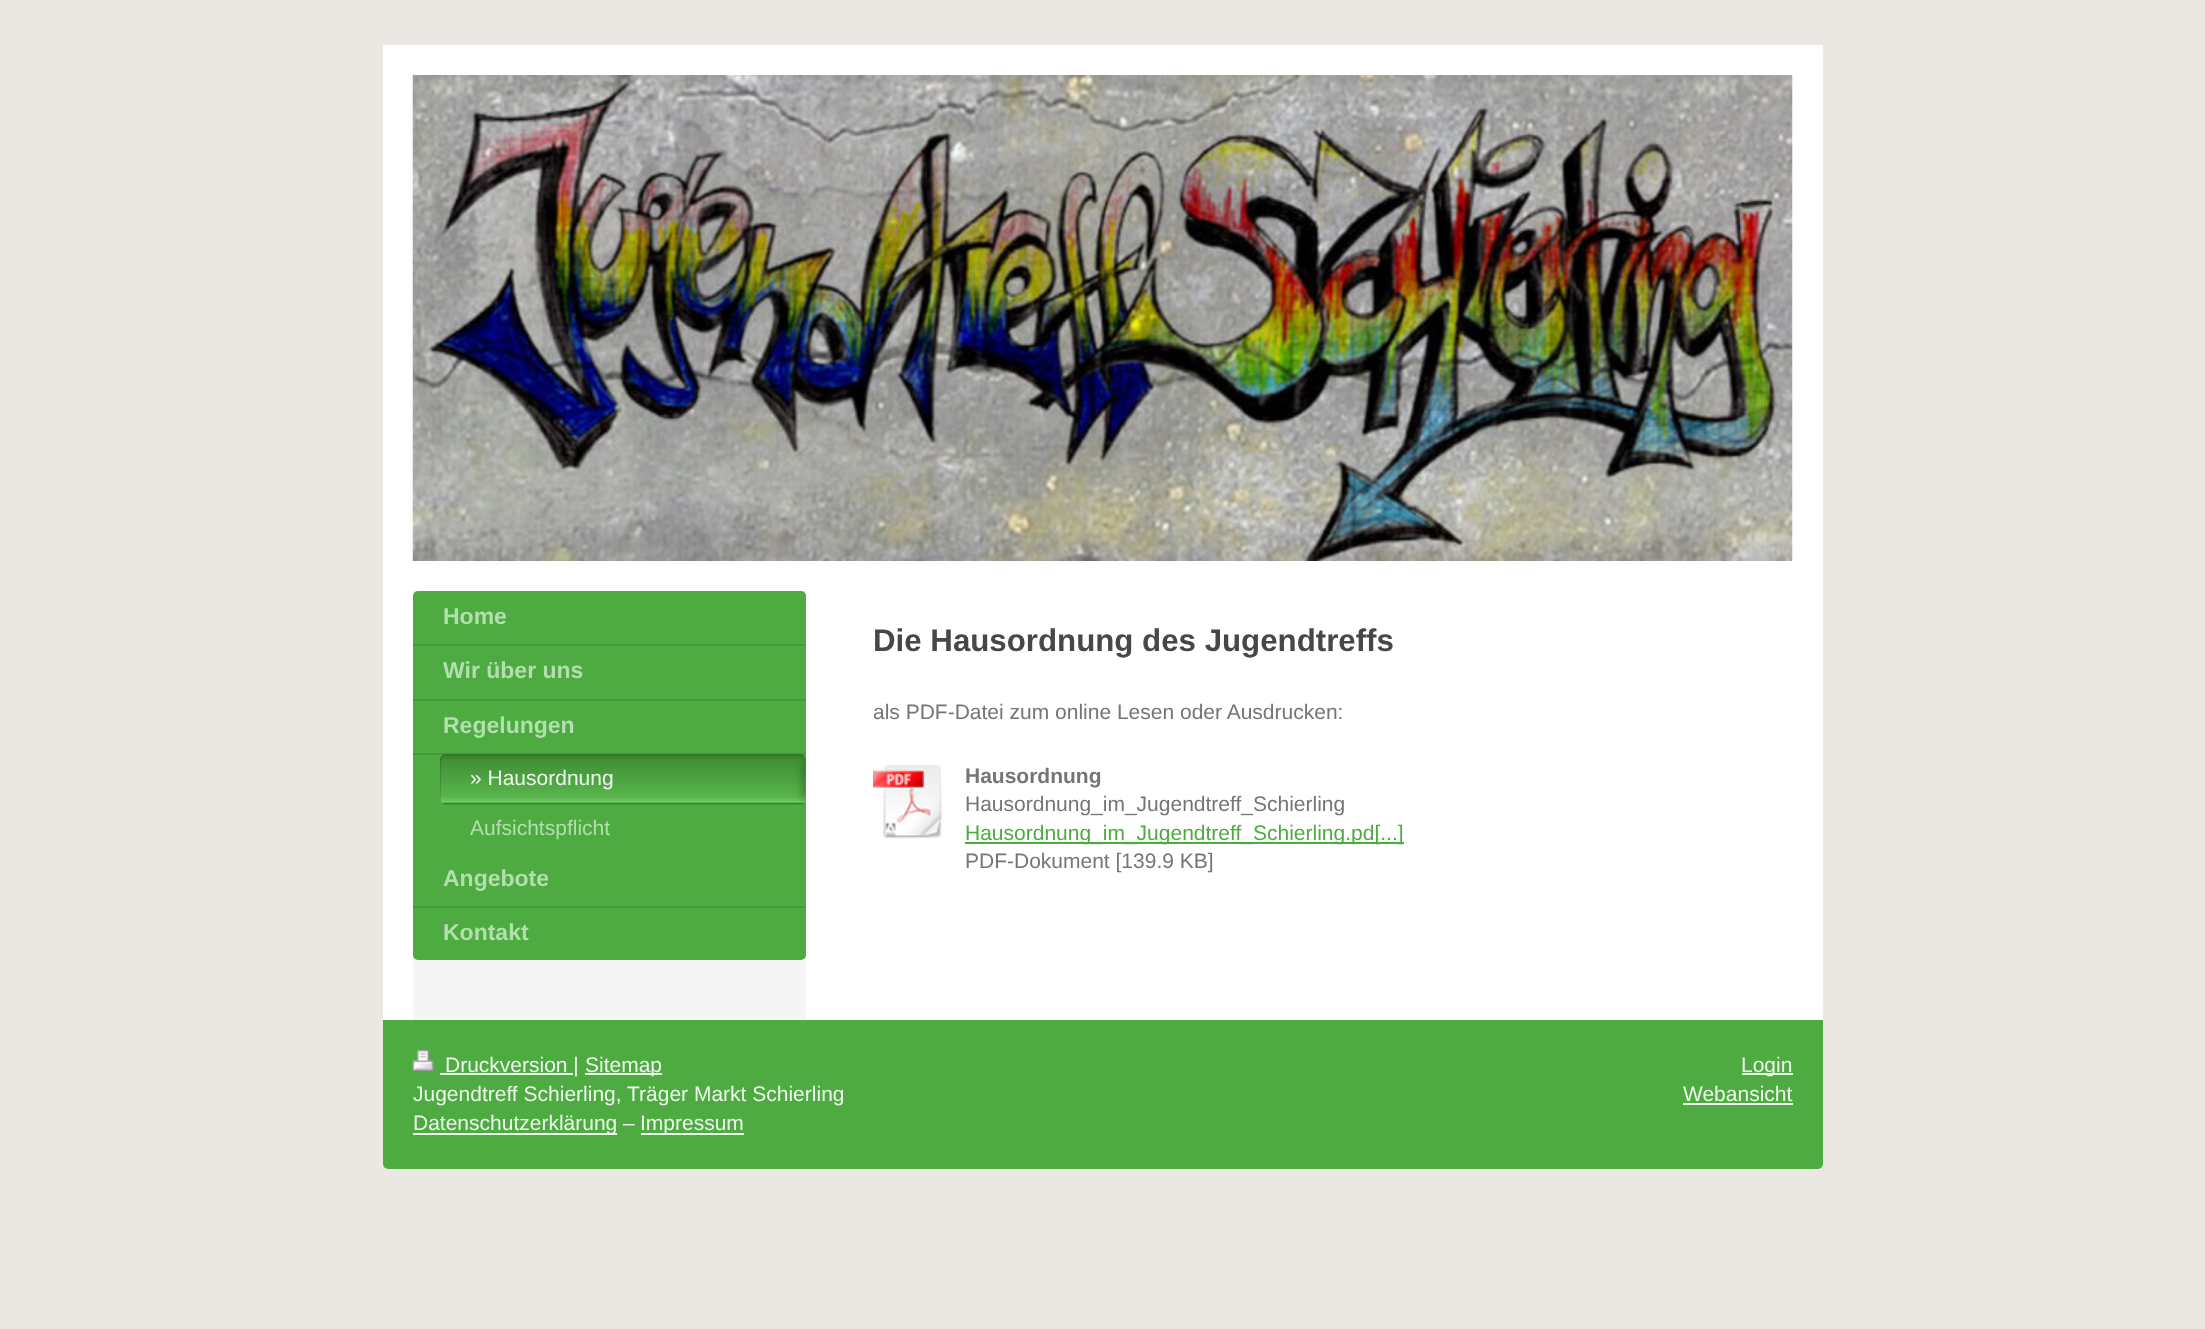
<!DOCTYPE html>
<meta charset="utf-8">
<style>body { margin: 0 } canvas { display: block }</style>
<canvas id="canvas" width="2205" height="1329"></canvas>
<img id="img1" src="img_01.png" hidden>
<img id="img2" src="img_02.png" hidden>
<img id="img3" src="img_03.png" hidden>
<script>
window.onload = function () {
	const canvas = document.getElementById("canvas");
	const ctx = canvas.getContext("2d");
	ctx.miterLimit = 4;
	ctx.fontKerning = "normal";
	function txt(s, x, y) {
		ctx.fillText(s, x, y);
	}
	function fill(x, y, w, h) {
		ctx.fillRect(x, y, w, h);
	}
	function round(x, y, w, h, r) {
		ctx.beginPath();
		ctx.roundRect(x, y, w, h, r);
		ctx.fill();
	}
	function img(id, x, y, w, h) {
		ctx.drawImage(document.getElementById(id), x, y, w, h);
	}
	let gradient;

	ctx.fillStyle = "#EBE7E2";
	fill(0, 0, 2205, 1329);
	ctx.fillStyle = "#FFFFFF";
	ctx.beginPath();
	ctx.roundRect(383, 45, 1440, 1124, [0, 0, 5, 5]);
	ctx.fill();
	img("img1", 412, 75, 1381, 486);
	ctx.fillStyle = "#F5F5F5";
	fill(413, 591, 393, 429);
	ctx.fillStyle = "#4DAB41";
	round(413, 591, 393, 369, 5);
	ctx.fillStyle = "#459A3B";
	fill(443, 803, 361, 2);
	fill(413, 644, 393, 2);
	fill(413, 699, 393, 2);
	fill(413, 753, 393, 2);
	ctx.save();
	ctx.beginPath();
	ctx.roundRect(440, 755, 366, 49, 5);
	ctx.clip();
	gradient = ctx.createLinearGradient(440, 803, 440, 755);
	gradient.addColorStop(0, "#5BBC4F");
	gradient.addColorStop(1, "#3E8A34");
	ctx.fillStyle = gradient;
	ctx.beginPath();
	ctx.roundRect(440, 755, 366, 48, [5, 5, 0, 0]);
	ctx.fill();
	gradient = ctx.createLinearGradient(440, 851, 440, 803);
	gradient.addColorStop(0, "#52A947");
	gradient.addColorStop(1, "#387C2F");
	ctx.fillStyle = gradient;
	fill(440, 803, 366, 1);
	ctx.restore();
	ctx.fillStyle = "rgba(0, 0, 0, 0.15)";
	ctx.beginPath();
	ctx.moveTo(446, 756);
	ctx.lineTo(802, 756);
	ctx.lineTo(805, 757);
	ctx.bezierCurveTo(804, 755, 803, 754, 801, 754);
	ctx.lineTo(444, 754);
	ctx.bezierCurveTo(442, 754, 440, 757, 440, 759);
	ctx.lineTo(440, 800);
	ctx.bezierCurveTo(440, 800, 440, 801, 441, 802);
	ctx.lineTo(441, 767);
	ctx.bezierCurveTo(441, 762, 440, 756, 446, 756);
	ctx.closePath();
	ctx.fill();
	ctx.fillStyle = "rgba(0, 0, 0, 0.04)";
	ctx.beginPath();
	ctx.moveTo(444, 759);
	ctx.lineTo(801, 759);
	ctx.bezierCurveTo(802, 759, 805, 760, 806, 762);
	ctx.lineTo(806, 759);
	ctx.bezierCurveTo(806, 757, 803, 754, 801, 754);
	ctx.lineTo(444, 754);
	ctx.bezierCurveTo(442, 754, 440, 757, 440, 759);
	ctx.lineTo(440, 800);
	ctx.lineTo(440, 801);
	ctx.lineTo(440, 764);
	ctx.bezierCurveTo(440, 761, 442, 759, 444, 759);
	ctx.closePath();
	ctx.fill();
	ctx.fillStyle = "rgba(255, 255, 255, 0.08)";
	ctx.beginPath();
	ctx.moveTo(440, 757);
	ctx.lineTo(440, 759);
	ctx.lineTo(440, 800);
	ctx.bezierCurveTo(440, 801, 442, 802, 444, 802);
	ctx.lineTo(801, 802);
	ctx.bezierCurveTo(803, 802, 806, 801, 806, 800);
	ctx.lineTo(806, 796);
	ctx.bezierCurveTo(805, 797, 802, 798, 801, 798);
	ctx.lineTo(444, 798);
	ctx.bezierCurveTo(442, 798, 440, 797, 440, 795);
	ctx.closePath();
	ctx.fill();
	ctx.fillStyle = "rgba(255, 255, 255, 0.1)";
	ctx.beginPath();
	ctx.moveTo(440, 757);
	ctx.lineTo(440, 759);
	ctx.lineTo(440, 800);
	ctx.bezierCurveTo(440, 801, 442, 802, 444, 802);
	ctx.lineTo(801, 802);
	ctx.bezierCurveTo(803, 802, 806, 801, 806, 800);
	ctx.lineTo(806, 799);
	ctx.bezierCurveTo(805, 800, 802, 801, 801, 801);
	ctx.lineTo(444, 801);
	ctx.bezierCurveTo(442, 801, 440, 800, 440, 798);
	ctx.closePath();
	ctx.fill();
	ctx.save();
	ctx.beginPath();
	ctx.moveTo(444, 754.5);
	ctx.lineTo(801, 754.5);
	ctx.bezierCurveTo(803.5, 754.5, 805.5, 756.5, 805.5, 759);
	ctx.lineTo(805.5, 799.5);
	ctx.bezierCurveTo(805.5, 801, 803.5, 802.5, 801, 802.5);
	ctx.lineTo(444, 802.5);
	ctx.bezierCurveTo(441.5, 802.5, 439.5, 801, 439.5, 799.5);
	ctx.lineTo(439.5, 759);
	ctx.bezierCurveTo(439.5, 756.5, 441.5, 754.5, 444, 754.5);
	ctx.closePath();
	ctx.clip();
	ctx.fillStyle = "rgba(0, 0, 0, 0.3)";
	ctx.filter = "blur(5px)";
	ctx.beginPath();
	ctx.roundRect(803, 758, 24, 48, 12);
	ctx.fill();
	ctx.filter = "none";
	ctx.restore();
	ctx.fillStyle = "#459A3B";
	fill(413, 906, 393, 2);
	img("img2", 873, 765, 69, 74);
	ctx.fillStyle = "#4DAB41";
	fill(965, 842, 439, 2);
	ctx.beginPath();
	ctx.roundRect(383, 1020, 1440, 149, [0, 0, 5, 5]);
	ctx.fill();
	img("img3", 412, 1050, 22, 21);
	ctx.fillStyle = "#EDF7EC";
	fill(440, 1073, 133, 2);
	fill(585, 1073, 77, 2);
	fill(413, 1133, 204, 2);
	fill(641, 1133, 103, 2);
	fill(1742, 1073, 51, 2);
	fill(1683, 1103, 110, 2);
	ctx.font = "bold 23px Liberation Sans";
	ctx.fillStyle = "#B3DFAE";
	txt("Home", 443, 624);
	txt("Wir über uns", 443, 678);
	txt("Regelungen", 443, 733);
	ctx.font = "21px Liberation Sans";
	ctx.fillStyle = "#EDF7EC";
	txt("» Hausordnung", 470, 785);
	ctx.fillStyle = "#B3DFAE";
	txt("Aufsichtspflicht", 470, 835);
	ctx.font = "bold 23px Liberation Sans";
	txt("Angebote", 443, 886);
	txt("Kontakt", 443, 940);
	ctx.font = "bold 31.25px Liberation Sans";
	ctx.fillStyle = "#474747";
	txt("Die Hausordnung des Jugendtreffs", 873, 651);
	ctx.font = "21px Liberation Sans";
	ctx.fillStyle = "#757575";
	txt("als PDF-Datei zum online Lesen oder Ausdrucken:", 873, 719);
	ctx.font = "bold 21px Liberation Sans";
	txt("Hausordnung", 965, 783);
	ctx.font = "21px Liberation Sans";
	txt("Hausordnung_im_Jugendtreff_Schierling", 965, 811);
	ctx.fillStyle = "#4DAB41";
	txt("Hausordnung_im_Jugendtreff_Schierling.pd[...]", 965, 840);
	ctx.fillStyle = "#757575";
	txt("PDF-Dokument [139.9 KB]", 965, 868);
	ctx.fillStyle = "#EDF7EC";
	txt("Druckversion |", 445, 1072);
	txt("Sitemap", 585, 1072);
	txt("Jugendtreff Schierling, Träger Markt Schierling", 413, 1101);
	txt("Datenschutzerklärung –", 413, 1130);
	txt("Impressum", 640, 1130);
	txt("Login", 1741, 1072);
	txt("Webansicht", 1683, 1101);
};
</script>
